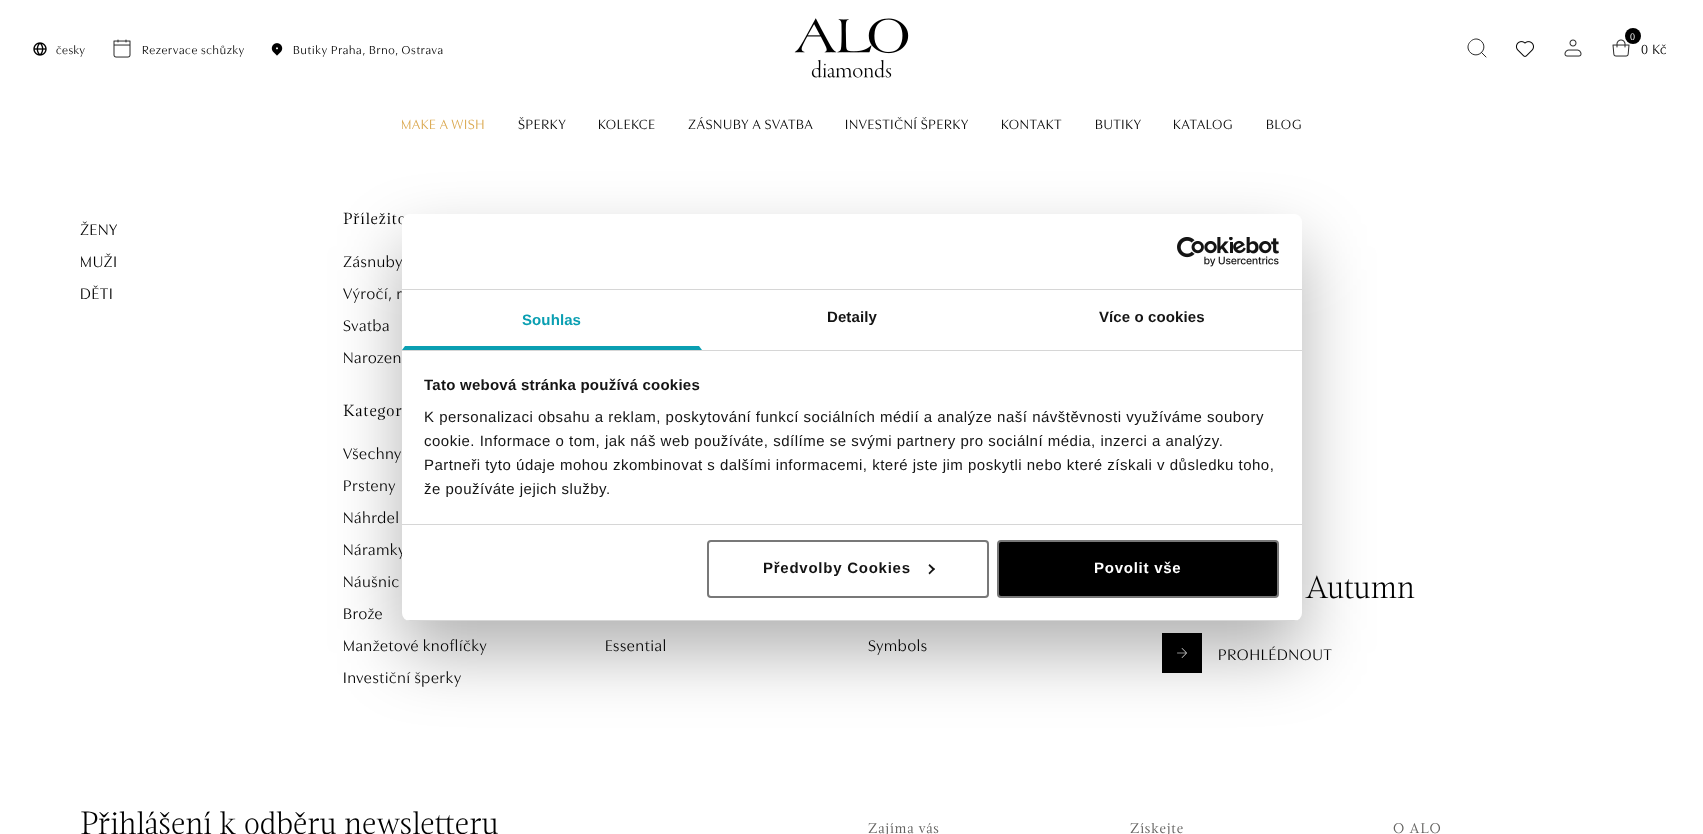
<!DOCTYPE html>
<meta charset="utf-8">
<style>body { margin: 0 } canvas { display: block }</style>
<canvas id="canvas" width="1703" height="834"></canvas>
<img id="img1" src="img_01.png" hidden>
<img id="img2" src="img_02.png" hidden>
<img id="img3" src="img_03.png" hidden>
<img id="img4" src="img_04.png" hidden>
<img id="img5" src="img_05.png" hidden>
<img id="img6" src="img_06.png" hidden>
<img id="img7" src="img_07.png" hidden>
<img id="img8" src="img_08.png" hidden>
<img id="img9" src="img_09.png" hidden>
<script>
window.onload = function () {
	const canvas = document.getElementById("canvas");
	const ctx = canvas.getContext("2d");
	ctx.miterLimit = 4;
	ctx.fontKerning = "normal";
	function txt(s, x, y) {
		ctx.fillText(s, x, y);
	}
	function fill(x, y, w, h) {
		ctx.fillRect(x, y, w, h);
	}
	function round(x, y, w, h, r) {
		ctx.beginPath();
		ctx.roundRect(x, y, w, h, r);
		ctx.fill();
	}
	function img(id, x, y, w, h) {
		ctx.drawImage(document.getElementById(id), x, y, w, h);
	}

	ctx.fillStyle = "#FFFFFF";
	fill(0, 0, 1703, 834);
	img("img1", 33, 42, 14, 14);
	img("img2", 113, 39, 18, 19);
	img("img3", 271, 43, 12, 13);
	img("img4", 794, 18, 115, 60);
	ctx.beginPath();
	ctx.moveTo(1486, 57);
	ctx.lineTo(1481.5, 52.5);
	ctx.moveTo(1481.5, 52.5);
	ctx.bezierCurveTo(1489, 45, 1478, 34, 1470.5, 41.5);
	ctx.bezierCurveTo(1463, 49, 1474, 60, 1481.5, 52.5);
	ctx.closePath();
	ctx.strokeStyle = "#292929";
	ctx.lineCap = "round";
	ctx.lineJoin = "round";
	ctx.stroke();
	img("img5", 1515, 41, 19, 16);
	img("img6", 1564, 39, 18, 18);
	img("img7", 1612, 39, 18, 18);
	ctx.fillStyle = "#000000";
	ctx.beginPath();
	ctx.arc(1633, 36, 8, 0, Math.PI * 2);
	ctx.fill();
	fill(1162, 633, 40, 40);
	img("img8", 1177, 648, 10, 10);
	ctx.fillStyle = "rgba(0, 0, 0, 0.3)";
	ctx.filter = "blur(34px)";
	ctx.beginPath();
	ctx.roundRect(402, 246, 900, 407, 8);
	ctx.fill();
	ctx.filter = "none";
	ctx.letterSpacing = "0.5px";
	ctx.font = "12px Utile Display";
	ctx.fillStyle = "#000000";
	txt("česky", 56, 54);
	ctx.letterSpacing = "0.8px";
	txt("Rezervace schůzky", 142, 54);
	txt("Butiky", 293, 54);
	txt("Praha, Brno, Ostrava", 331, 54);
	ctx.font = "10px Utile Display";
	ctx.fillStyle = "#FFFFFF";
	txt("0", 1630, 40);
	ctx.font = "14px Utile Display";
	ctx.fillStyle = "#000000";
	txt("0 Kč", 1641, 54);
	ctx.fillStyle = "#DBA951";
	txt("MAKE A WISH", 401, 129);
	ctx.fillStyle = "#000000";
	txt("ŠPERKY", 518, 129);
	txt("KOLEKCE", 598, 129);
	txt("ZÁSNUBY A SVATBA", 688, 129);
	txt("INVESTIČNÍ ŠPERKY", 845, 129);
	txt("KONTAKT", 1001, 129);
	txt("BUTIKY", 1095, 129);
	txt("KATALOG", 1173, 129);
	txt("BLOG", 1266, 129);
	ctx.font = "16px Utile Display";
	txt("ŽENY", 80, 235);
	txt("MUŽI", 80, 267);
	txt("DĚTI", 80, 299);
	ctx.font = "16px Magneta";
	txt("Příležito", 343, 224);
	ctx.font = "16px Utile Display";
	txt("Zásnuby", 343, 267);
	txt("Výročí, r", 343, 299);
	txt("Svatba", 343, 331);
	txt("Narozen", 343, 363);
	ctx.font = "16px Magneta";
	txt("Kategor", 343, 416);
	ctx.font = "16px Utile Display";
	txt("Všechny", 343, 459);
	txt("Prsteny", 343, 491);
	txt("Náhrdel", 343, 523);
	txt("Náramky", 343, 555);
	txt("Náušnic", 343, 587);
	txt("Brože", 343, 619);
	txt("Manžetové knoflíčky", 343, 651);
	txt("Investiční šperky", 343, 683);
	txt("Essential", 605, 651);
	txt("Symbols", 868, 651);
	ctx.letterSpacing = "0px";
	ctx.font = "100 32px Magneta";
	txt("Autumn", 1305, 598);
	ctx.letterSpacing = "0.8px";
	ctx.font = "16px Utile Display";
	txt("PROHLÉDNOUT", 1218, 660);
	ctx.letterSpacing = "0px";
	ctx.font = "100 32px Magneta";
	txt("Přihlášení k odběru newsletteru", 80, 834);
	ctx.letterSpacing = "0.8px";
	ctx.font = "14px Magneta";
	ctx.fillStyle = "#636260";
	txt("Zajíma vás", 868, 833);
	txt("Získejte", 1130, 833);
	txt("O ALO", 1393, 833);
	ctx.fillStyle = "#FFFFFF";
	round(402, 214, 900, 407, 8);
	ctx.fillStyle = "#D6D6D6";
	fill(402, 289, 900, 1);
	img("img9", 1177, 237, 102, 30);
	fill(402, 350, 900, 1);
	ctx.fillStyle = "#0A9FB2";
	ctx.beginPath();
	ctx.moveTo(702, 350);
	ctx.lineTo(402, 350);
	ctx.lineTo(405, 346);
	ctx.lineTo(699, 346);
	ctx.closePath();
	ctx.fill();
	ctx.letterSpacing = "0.1px";
	ctx.font = "bold 15px Liberation Sans";
	txt("Souhlas", 522, 325);
	ctx.fillStyle = "#141414";
	txt("Detaily", 827, 322);
	txt("Více o cookies", 1099, 322);
	ctx.fillStyle = "#D6D6D6";
	fill(402, 524, 900, 1);
	ctx.letterSpacing = "0.25px";
	ctx.fillStyle = "#141414";
	txt("Tato webová stránka používá cookies", 424, 390);
	ctx.letterSpacing = "0.5px";
	ctx.font = "15px Liberation Sans";
	txt("K personalizaci obsahu a reklam, poskytování funkcí sociálních médií a analýze naší návštěvnosti využíváme soubory", 424, 422);
	txt("cookie. Informace o tom, jak náš web používáte, sdílíme se svými partnery pro sociální média, inzerci a analýzy.", 424, 446);
	txt("Partneři tyto údaje mohou zkombinovat s dalšími informacemi, které jste jim poskytli nebo které získali v důsledku toho,", 424, 470);
	txt("že používáte jejich služby.", 424, 494);
	ctx.save();
	ctx.beginPath();
	ctx.roundRect(402, 214, 900, 407, 8);
	ctx.clip();
	ctx.fillStyle = "#D6D6D6";
	fill(402, 620, 900, 1);
	ctx.restore();
	ctx.beginPath();
	ctx.roundRect(708, 541, 280, 56, 3);
	ctx.strokeStyle = "#787878";
	ctx.lineWidth = 2;
	ctx.lineJoin = "miter";
	ctx.stroke();
	ctx.letterSpacing = "0.75px";
	ctx.font = "bold 15px Liberation Sans";
	txt("Předvolby Cookies", 763, 573);
	ctx.beginPath();
	ctx.moveTo(929.5, 564);
	ctx.lineTo(935, 569);
	ctx.lineTo(933.5, 570.5);
	ctx.lineTo(928.5, 565.5);
	ctx.closePath();
	ctx.fill();
	ctx.beginPath();
	ctx.moveTo(933.5, 568);
	ctx.lineTo(935, 569);
	ctx.lineTo(929.5, 574.5);
	ctx.lineTo(928.5, 573);
	ctx.closePath();
	ctx.fill();
	ctx.fillStyle = "#000000";
	ctx.beginPath();
	ctx.roundRect(998, 541, 280, 56, 3);
	ctx.fill();
	ctx.stroke();
	ctx.fillStyle = "#FFFFFF";
	txt("Povolit vše", 1094, 573);
};
</script>
